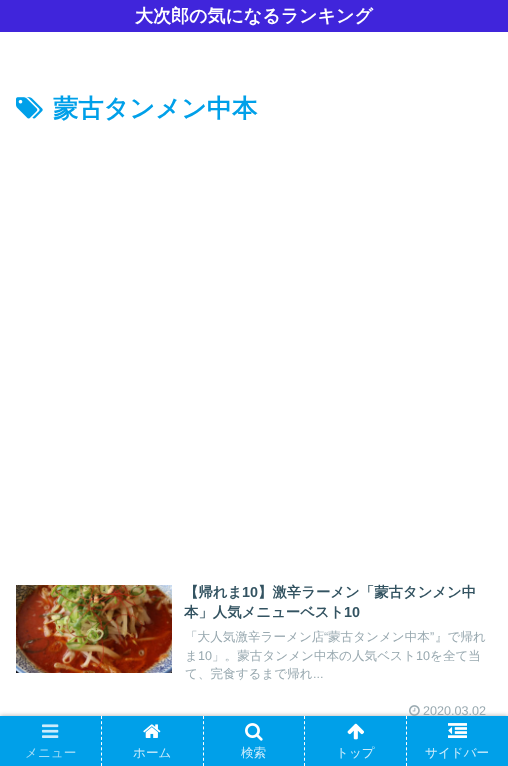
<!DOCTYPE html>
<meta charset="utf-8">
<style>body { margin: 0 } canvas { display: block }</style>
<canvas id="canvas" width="508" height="766"></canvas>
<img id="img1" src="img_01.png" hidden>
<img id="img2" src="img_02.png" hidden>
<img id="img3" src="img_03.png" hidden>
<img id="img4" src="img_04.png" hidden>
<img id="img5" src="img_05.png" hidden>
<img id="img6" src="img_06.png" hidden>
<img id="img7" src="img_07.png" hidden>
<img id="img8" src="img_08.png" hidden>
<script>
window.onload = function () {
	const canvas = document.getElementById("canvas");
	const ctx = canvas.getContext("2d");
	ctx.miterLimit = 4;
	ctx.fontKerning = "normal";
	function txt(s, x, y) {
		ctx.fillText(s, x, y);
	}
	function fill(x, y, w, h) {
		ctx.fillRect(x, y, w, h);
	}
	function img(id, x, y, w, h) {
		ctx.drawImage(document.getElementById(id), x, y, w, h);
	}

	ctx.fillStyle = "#FFFFFF";
	fill(0, 0, 508, 766);
	ctx.fillStyle = "#4025DB";
	fill(0, 0, 508, 32);
	img("img1", 16, 97, 27, 22);
	img("img2", 16, 585, 156, 88);
	img("img3", 409, 705, 11, 11);
	ctx.fillStyle = "#A9A9A9";
	ctx.filter = "blur(2.5px)";
	ctx.beginPath();
	ctx.rect(0, 716, 508, 50);
	ctx.fill();
	ctx.filter = "none";
	ctx.fillStyle = "#00A0E9";
	fill(0, 716, 508, 50);
	ctx.beginPath();
	ctx.moveTo(101.5, 716);
	ctx.lineTo(101.5, 766);
	ctx.strokeStyle = "#FFFFFF";
	ctx.setLineDash([3, 2.22]);
	ctx.stroke();
	img("img4", 42, 724, 17, 14);
	ctx.beginPath();
	ctx.moveTo(203.5, 716);
	ctx.lineTo(203.5, 766);
	ctx.stroke();
	img("img5", 143, 724, 18, 14);
	ctx.beginPath();
	ctx.moveTo(304.5, 716);
	ctx.lineTo(304.5, 766);
	ctx.stroke();
	img("img6", 245, 723, 18, 18);
	ctx.beginPath();
	ctx.moveTo(406.5, 716);
	ctx.lineTo(406.5, 766);
	ctx.stroke();
	img("img7", 347, 723, 17, 17);
	img("img8", 448, 723, 19, 15);
	ctx.font = "bold 18px WenQuanYi Zen Hei";
	ctx.fillStyle = "#FFFFFF";
	txt("大次郎の気になるランキング", 135, 22);
	ctx.font = "bold 25.25px WenQuanYi Zen Hei";
	ctx.fillStyle = "#00A0E9";
	txt("蒙古タンメン中本", 53, 117);
	ctx.font = "bold 14.4px WenQuanYi Zen Hei";
	ctx.fillStyle = "#335361";
	txt("【帰れま", 184, 597);
	ctx.font = "bold 14.4px Liberation Sans";
	txt("10", 242, 597);
	ctx.font = "bold 14.4px WenQuanYi Zen Hei";
	txt("】激辛ラーメン「蒙古タンメン中", 258, 597);
	txt("本」人気メニューベスト", 184, 617);
	ctx.font = "bold 14.4px Liberation Sans";
	txt("10", 344, 617);
	ctx.font = "500 12.6px WenQuanYi Zen Hei";
	ctx.fillStyle = "#99A9B0";
	txt("「大人気激辛ラーメン店", 185, 641);
	ctx.font = "12.6px Liberation Sans";
	txt("“", 324, 641);
	ctx.font = "500 12.6px WenQuanYi Zen Hei";
	txt("蒙古タンメン中本", 328, 641);
	ctx.font = "12.6px Liberation Sans";
	txt("”", 430, 641);
	ctx.font = "500 12.6px WenQuanYi Zen Hei";
	txt("』で帰れ", 435, 641);
	txt("ま", 185, 660);
	ctx.font = "12.6px Liberation Sans";
	txt("10", 198, 660);
	ctx.font = "500 12.6px WenQuanYi Zen Hei";
	txt("」。蒙古タンメン中本の人気ベスト", 212, 660);
	ctx.font = "12.6px Liberation Sans";
	txt("10", 416, 660);
	ctx.font = "500 12.6px WenQuanYi Zen Hei";
	txt("を全て当", 430, 660);
	txt("て、完食するまで帰れ", 185, 678);
	ctx.font = "12.6px Liberation Sans";
	txt("...", 313, 678);
	txt("2020.03.02", 423, 715);
	ctx.font = "500 12.6px WenQuanYi Zen Hei";
	ctx.fillStyle = "#A3DDF7";
	txt("メニュー", 25, 757);
	ctx.fillStyle = "#CCECFB";
	txt("ホーム", 133, 757);
	txt("検索", 241, 757);
	txt("トップ", 336, 757);
	txt("サイドバー", 425, 757);
};
</script>
